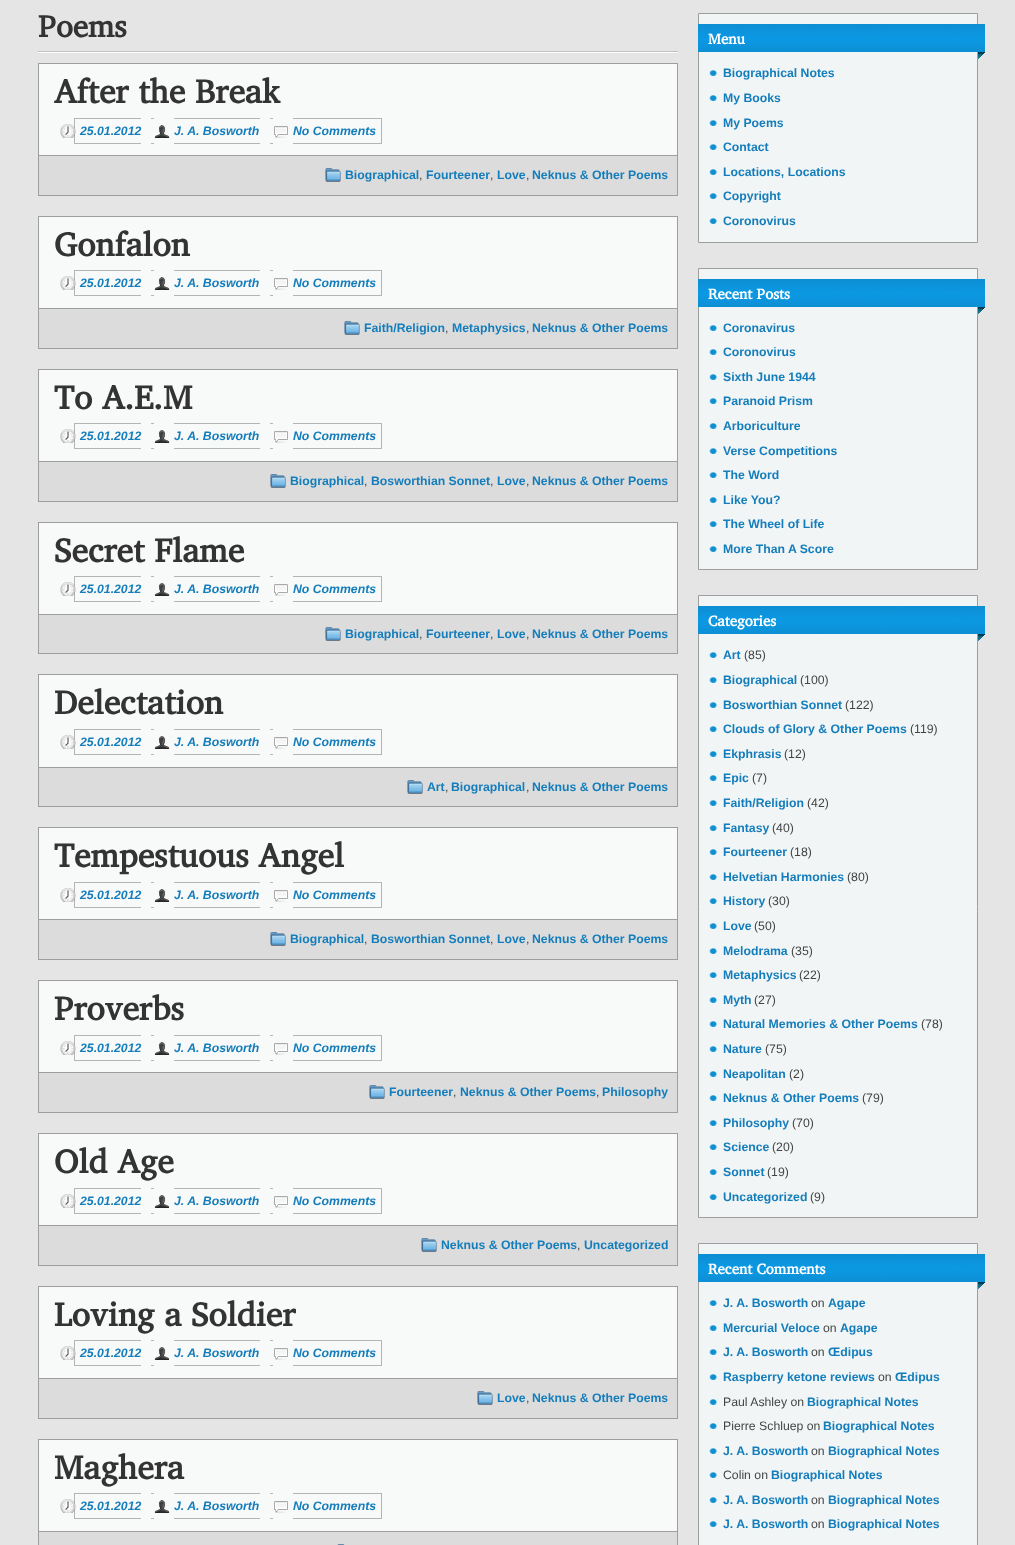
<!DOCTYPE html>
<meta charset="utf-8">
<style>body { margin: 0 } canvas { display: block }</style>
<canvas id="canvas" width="1015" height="1545"></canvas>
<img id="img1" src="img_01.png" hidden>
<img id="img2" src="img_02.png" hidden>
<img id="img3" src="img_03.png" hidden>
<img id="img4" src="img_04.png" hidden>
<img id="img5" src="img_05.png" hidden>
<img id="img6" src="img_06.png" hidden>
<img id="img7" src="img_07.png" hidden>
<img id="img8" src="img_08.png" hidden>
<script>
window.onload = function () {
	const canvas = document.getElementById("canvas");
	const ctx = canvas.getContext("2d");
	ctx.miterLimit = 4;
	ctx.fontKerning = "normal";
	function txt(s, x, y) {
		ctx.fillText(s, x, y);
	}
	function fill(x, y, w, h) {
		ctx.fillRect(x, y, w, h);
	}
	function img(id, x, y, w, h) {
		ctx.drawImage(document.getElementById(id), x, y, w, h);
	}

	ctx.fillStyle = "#E5E5E5";
	fill(0, 0, 1015, 1545);
	img("img1", 38, 51, 640, 2);
	ctx.fillStyle = "#F8F9F9";
	fill(39, 64, 638, 91);
	ctx.strokeStyle = "#9E9E9E";
	ctx.strokeRect(38.5, 63.5, 639, 132);
	ctx.fillStyle = "#B4B4B4";
	fill(74, 118, 67, 1);
	fill(74, 143, 67, 1);
	fill(74, 118, 1, 26);
	img("img2", 60, 124, 16, 14);
	fill(151, 118, 3, 1);
	fill(151, 143, 3, 1);
	img("img3", 154, 125, 16, 13);
	fill(174, 118, 86, 1);
	fill(174, 143, 86, 1);
	fill(270, 118, 3, 1);
	fill(270, 143, 3, 1);
	img("img4", 274, 126, 14, 12);
	fill(293, 118, 89, 1);
	fill(381, 118, 1, 26);
	fill(293, 143, 89, 1);
	ctx.fillStyle = "#DCDCDC";
	fill(39, 156, 638, 39);
	ctx.fillStyle = "#9E9E9E";
	fill(39, 155, 638, 1);
	img("img5", 325, 168, 16, 14);
	ctx.fillStyle = "#F8F9F9";
	fill(39, 217, 638, 91);
	ctx.strokeRect(38.5, 216.5, 639, 132);
	ctx.fillStyle = "#B4B4B4";
	fill(74, 270, 67, 1);
	fill(74, 295, 67, 1);
	fill(74, 270, 1, 26);
	img("img2", 60, 276, 16, 14);
	fill(151, 270, 3, 1);
	fill(151, 295, 3, 1);
	img("img3", 154, 277, 16, 13);
	fill(174, 270, 86, 1);
	fill(174, 295, 86, 1);
	fill(270, 270, 3, 1);
	fill(270, 295, 3, 1);
	img("img4", 274, 278, 14, 12);
	fill(293, 270, 89, 1);
	fill(381, 270, 1, 26);
	fill(293, 295, 89, 1);
	ctx.fillStyle = "#DCDCDC";
	fill(39, 309, 638, 39);
	ctx.fillStyle = "#9E9E9E";
	fill(39, 308, 638, 1);
	img("img5", 344, 321, 16, 14);
	ctx.fillStyle = "#F8F9F9";
	fill(39, 370, 638, 91);
	ctx.strokeRect(38.5, 369.5, 639, 132);
	ctx.fillStyle = "#B4B4B4";
	fill(74, 423, 67, 1);
	fill(74, 448, 67, 1);
	fill(74, 423, 1, 26);
	img("img2", 60, 429, 16, 14);
	fill(151, 423, 3, 1);
	fill(151, 448, 3, 1);
	img("img3", 154, 430, 16, 13);
	fill(174, 423, 86, 1);
	fill(174, 448, 86, 1);
	fill(270, 423, 3, 1);
	fill(270, 448, 3, 1);
	img("img4", 274, 431, 14, 12);
	fill(293, 423, 89, 1);
	fill(381, 423, 1, 26);
	fill(293, 448, 89, 1);
	ctx.fillStyle = "#DCDCDC";
	fill(39, 462, 638, 39);
	ctx.fillStyle = "#9E9E9E";
	fill(39, 461, 638, 1);
	img("img5", 270, 474, 16, 14);
	ctx.fillStyle = "#F8F9F9";
	fill(39, 523, 638, 91);
	ctx.strokeRect(38.5, 522.5, 639, 131);
	ctx.fillStyle = "#B4B4B4";
	fill(74, 576, 67, 1);
	fill(74, 601, 67, 1);
	fill(74, 576, 1, 26);
	img("img2", 60, 582, 16, 14);
	fill(151, 576, 3, 1);
	fill(151, 601, 3, 1);
	img("img3", 154, 583, 16, 13);
	fill(174, 576, 86, 1);
	fill(174, 601, 86, 1);
	fill(270, 576, 3, 1);
	fill(270, 601, 3, 1);
	img("img4", 274, 584, 14, 12);
	fill(293, 576, 89, 1);
	fill(381, 576, 1, 26);
	fill(293, 601, 89, 1);
	ctx.fillStyle = "#DCDCDC";
	fill(39, 615, 638, 38);
	ctx.fillStyle = "#9E9E9E";
	fill(39, 614, 638, 1);
	img("img5", 325, 627, 16, 14);
	ctx.fillStyle = "#F8F9F9";
	fill(39, 675, 638, 92);
	ctx.strokeRect(38.5, 674.5, 639, 132);
	ctx.fillStyle = "#B4B4B4";
	fill(74, 729, 67, 1);
	fill(74, 754, 67, 1);
	fill(74, 729, 1, 26);
	img("img2", 60, 735, 16, 14);
	fill(151, 729, 3, 1);
	fill(151, 754, 3, 1);
	img("img3", 154, 736, 16, 13);
	fill(174, 729, 86, 1);
	fill(174, 754, 86, 1);
	fill(270, 729, 3, 1);
	fill(270, 754, 3, 1);
	img("img4", 274, 737, 14, 12);
	fill(293, 729, 89, 1);
	fill(381, 729, 1, 26);
	fill(293, 754, 89, 1);
	ctx.fillStyle = "#DCDCDC";
	fill(39, 768, 638, 38);
	ctx.fillStyle = "#9E9E9E";
	fill(39, 767, 638, 1);
	img("img5", 407, 780, 16, 14);
	ctx.fillStyle = "#F8F9F9";
	fill(39, 828, 638, 91);
	ctx.strokeRect(38.5, 827.5, 639, 132);
	ctx.fillStyle = "#B4B4B4";
	fill(74, 882, 67, 1);
	fill(74, 907, 67, 1);
	fill(74, 882, 1, 26);
	img("img2", 60, 888, 16, 14);
	fill(151, 882, 3, 1);
	fill(151, 907, 3, 1);
	img("img3", 154, 889, 16, 13);
	fill(174, 882, 86, 1);
	fill(174, 907, 86, 1);
	fill(270, 882, 3, 1);
	fill(270, 907, 3, 1);
	img("img4", 274, 890, 14, 12);
	fill(293, 882, 89, 1);
	fill(381, 882, 1, 26);
	fill(293, 907, 89, 1);
	ctx.fillStyle = "#DCDCDC";
	fill(39, 920, 638, 39);
	ctx.fillStyle = "#9E9E9E";
	fill(39, 919, 638, 1);
	img("img5", 270, 932, 16, 14);
	ctx.fillStyle = "#F8F9F9";
	fill(39, 981, 638, 91);
	ctx.strokeRect(38.5, 980.5, 639, 132);
	ctx.fillStyle = "#B4B4B4";
	fill(74, 1035, 67, 1);
	fill(74, 1060, 67, 1);
	fill(74, 1035, 1, 26);
	img("img2", 60, 1041, 16, 14);
	fill(151, 1035, 3, 1);
	fill(151, 1060, 3, 1);
	img("img3", 154, 1042, 16, 13);
	fill(174, 1035, 86, 1);
	fill(174, 1060, 86, 1);
	fill(270, 1035, 3, 1);
	fill(270, 1060, 3, 1);
	img("img4", 274, 1043, 14, 12);
	fill(293, 1035, 89, 1);
	fill(381, 1035, 1, 26);
	fill(293, 1060, 89, 1);
	ctx.fillStyle = "#DCDCDC";
	fill(39, 1073, 638, 39);
	ctx.fillStyle = "#9E9E9E";
	fill(39, 1072, 638, 1);
	img("img5", 369, 1085, 16, 14);
	ctx.fillStyle = "#F8F9F9";
	fill(39, 1134, 638, 91);
	ctx.strokeRect(38.5, 1133.5, 639, 132);
	ctx.fillStyle = "#B4B4B4";
	fill(74, 1188, 67, 1);
	fill(74, 1213, 67, 1);
	fill(74, 1188, 1, 26);
	img("img2", 60, 1194, 16, 14);
	fill(151, 1188, 3, 1);
	fill(151, 1213, 3, 1);
	img("img3", 154, 1195, 16, 13);
	fill(174, 1188, 86, 1);
	fill(174, 1213, 86, 1);
	fill(270, 1188, 3, 1);
	fill(270, 1213, 3, 1);
	img("img4", 274, 1196, 14, 12);
	fill(293, 1188, 89, 1);
	fill(381, 1188, 1, 26);
	fill(293, 1213, 89, 1);
	ctx.fillStyle = "#DCDCDC";
	fill(39, 1226, 638, 39);
	ctx.fillStyle = "#9E9E9E";
	fill(39, 1225, 638, 1);
	img("img5", 421, 1238, 16, 14);
	ctx.fillStyle = "#F8F9F9";
	fill(39, 1287, 638, 91);
	ctx.strokeRect(38.5, 1286.5, 639, 132);
	ctx.fillStyle = "#B4B4B4";
	fill(74, 1340, 67, 1);
	fill(74, 1365, 67, 1);
	fill(74, 1340, 1, 26);
	img("img2", 60, 1346, 16, 14);
	fill(151, 1340, 3, 1);
	fill(151, 1365, 3, 1);
	img("img3", 154, 1347, 16, 13);
	fill(174, 1340, 86, 1);
	fill(174, 1365, 86, 1);
	fill(270, 1340, 3, 1);
	fill(270, 1365, 3, 1);
	img("img4", 274, 1348, 14, 12);
	fill(293, 1340, 89, 1);
	fill(381, 1340, 1, 26);
	fill(293, 1365, 89, 1);
	ctx.fillStyle = "#DCDCDC";
	fill(39, 1379, 638, 39);
	ctx.fillStyle = "#9E9E9E";
	fill(39, 1378, 638, 1);
	img("img5", 477, 1391, 16, 14);
	ctx.fillStyle = "#F8F9F9";
	fill(39, 1440, 638, 91);
	ctx.strokeRect(38.5, 1439.5, 639, 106);
	ctx.fillStyle = "#B4B4B4";
	fill(74, 1493, 67, 1);
	fill(74, 1518, 67, 1);
	fill(74, 1493, 1, 26);
	img("img2", 60, 1499, 16, 14);
	fill(151, 1493, 3, 1);
	fill(151, 1518, 3, 1);
	img("img3", 154, 1500, 16, 13);
	fill(174, 1493, 86, 1);
	fill(174, 1518, 86, 1);
	fill(270, 1493, 3, 1);
	fill(270, 1518, 3, 1);
	img("img4", 274, 1501, 14, 12);
	fill(293, 1493, 89, 1);
	fill(381, 1493, 1, 26);
	fill(293, 1518, 89, 1);
	ctx.fillStyle = "#DCDCDC";
	fill(39, 1532, 638, 13);
	ctx.fillStyle = "#9E9E9E";
	fill(39, 1531, 638, 1);
	img("img6", 337, 1544, 8, 1);
	ctx.fillStyle = "#F1F5F6";
	ctx.beginPath();
	ctx.rect(698.5, 13.5, 279, 229);
	ctx.fill();
	ctx.stroke();
	img("img7", 698, 24, 287, 35);
	img("img8", 709, 70, 8, 6);
	img("img8", 709, 95, 8, 6);
	img("img8", 709, 120, 8, 6);
	img("img8", 709, 144, 8, 6);
	img("img8", 709, 169, 8, 6);
	img("img8", 709, 193, 8, 6);
	img("img8", 709, 218, 8, 6);
	ctx.beginPath();
	ctx.rect(698.5, 268.5, 279, 301);
	ctx.fill();
	ctx.stroke();
	img("img7", 698, 279, 287, 35);
	img("img8", 709, 325, 8, 6);
	img("img8", 709, 349, 8, 6);
	img("img8", 709, 374, 8, 6);
	img("img8", 709, 398, 8, 6);
	img("img8", 709, 423, 8, 6);
	img("img8", 709, 448, 8, 6);
	img("img8", 709, 472, 8, 6);
	img("img8", 709, 497, 8, 6);
	img("img8", 709, 521, 8, 6);
	img("img8", 709, 546, 8, 6);
	ctx.beginPath();
	ctx.rect(698.5, 595.5, 279, 622);
	ctx.fill();
	ctx.stroke();
	img("img7", 698, 606, 287, 35);
	img("img8", 709, 652, 8, 6);
	img("img8", 709, 677, 8, 6);
	img("img8", 709, 702, 8, 6);
	img("img8", 709, 726, 8, 6);
	img("img8", 709, 751, 8, 6);
	img("img8", 709, 775, 8, 6);
	img("img8", 709, 800, 8, 6);
	img("img8", 709, 825, 8, 6);
	img("img8", 709, 849, 8, 6);
	img("img8", 709, 874, 8, 6);
	img("img8", 709, 898, 8, 6);
	img("img8", 709, 923, 8, 6);
	img("img8", 709, 948, 8, 6);
	img("img8", 709, 972, 8, 6);
	img("img8", 709, 997, 8, 6);
	img("img8", 709, 1021, 8, 6);
	img("img8", 709, 1046, 8, 6);
	img("img8", 709, 1071, 8, 6);
	img("img8", 709, 1095, 8, 6);
	img("img8", 709, 1120, 8, 6);
	img("img8", 709, 1144, 8, 6);
	img("img8", 709, 1169, 8, 6);
	img("img8", 709, 1194, 8, 6);
	ctx.beginPath();
	ctx.rect(698.5, 1243.5, 279, 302);
	ctx.fill();
	ctx.stroke();
	img("img7", 698, 1254, 287, 35);
	img("img8", 709, 1300, 8, 6);
	img("img8", 709, 1325, 8, 6);
	img("img8", 709, 1349, 8, 6);
	img("img8", 709, 1374, 8, 6);
	img("img8", 709, 1399, 8, 6);
	img("img8", 709, 1423, 8, 6);
	img("img8", 709, 1448, 8, 6);
	img("img8", 709, 1472, 8, 6);
	img("img8", 709, 1497, 8, 6);
	img("img8", 709, 1521, 8, 6);
	ctx.font = "bold 31px Charis SIL";
	ctx.fillStyle = "#333333";
	txt("Poems", 38, 37);
	ctx.font = "bold 33.5px Charis SIL";
	txt("After the Break", 54, 103);
	ctx.font = "italic bold 12.25px Liberation Sans";
	ctx.fillStyle = "#147DBB";
	txt("25.01.2012", 80, 135);
	txt("J. A. Bosworth", 174, 135);
	txt("No Comments", 293, 135);
	ctx.font = "bold 12.25px Liberation Sans";
	txt("Biographical", 345, 179);
	ctx.font = "12.25px Liberation Sans";
	ctx.fillStyle = "#444444";
	txt(",", 419, 179);
	ctx.font = "bold 12.25px Liberation Sans";
	ctx.fillStyle = "#147DBB";
	txt("Fourteener", 426, 179);
	ctx.font = "12.25px Liberation Sans";
	ctx.fillStyle = "#444444";
	txt(",", 490, 179);
	ctx.font = "bold 12.25px Liberation Sans";
	ctx.fillStyle = "#147DBB";
	txt("Love", 497, 179);
	ctx.font = "12.25px Liberation Sans";
	ctx.fillStyle = "#444444";
	txt(",", 526, 179);
	ctx.font = "bold 12.25px Liberation Sans";
	ctx.fillStyle = "#147DBB";
	txt("Neknus & Other Poems", 532, 179);
	ctx.font = "bold 33.5px Charis SIL";
	ctx.fillStyle = "#333333";
	txt("Gonfalon", 54, 256);
	ctx.font = "italic bold 12.25px Liberation Sans";
	ctx.fillStyle = "#147DBB";
	txt("25.01.2012", 80, 287);
	txt("J. A. Bosworth", 174, 287);
	txt("No Comments", 293, 287);
	ctx.font = "bold 12.25px Liberation Sans";
	txt("Faith/Religion", 364, 332);
	ctx.font = "12.25px Liberation Sans";
	ctx.fillStyle = "#444444";
	txt(",", 445, 332);
	ctx.font = "bold 12.25px Liberation Sans";
	ctx.fillStyle = "#147DBB";
	txt("Metaphysics", 452, 332);
	ctx.font = "12.25px Liberation Sans";
	ctx.fillStyle = "#444444";
	txt(",", 526, 332);
	ctx.font = "bold 12.25px Liberation Sans";
	ctx.fillStyle = "#147DBB";
	txt("Neknus & Other Poems", 532, 332);
	ctx.font = "bold 33.5px Charis SIL";
	ctx.fillStyle = "#333333";
	txt("To A.E.M", 54, 409);
	ctx.font = "italic bold 12.25px Liberation Sans";
	ctx.fillStyle = "#147DBB";
	txt("25.01.2012", 80, 440);
	txt("J. A. Bosworth", 174, 440);
	txt("No Comments", 293, 440);
	ctx.font = "bold 12.25px Liberation Sans";
	txt("Biographical", 290, 485);
	ctx.font = "12.25px Liberation Sans";
	ctx.fillStyle = "#444444";
	txt(",", 364, 485);
	ctx.font = "bold 12.25px Liberation Sans";
	ctx.fillStyle = "#147DBB";
	txt("Bosworthian Sonnet", 371, 485);
	ctx.font = "12.25px Liberation Sans";
	ctx.fillStyle = "#444444";
	txt(",", 490, 485);
	ctx.font = "bold 12.25px Liberation Sans";
	ctx.fillStyle = "#147DBB";
	txt("Love", 497, 485);
	ctx.font = "12.25px Liberation Sans";
	ctx.fillStyle = "#444444";
	txt(",", 526, 485);
	ctx.font = "bold 12.25px Liberation Sans";
	ctx.fillStyle = "#147DBB";
	txt("Neknus & Other Poems", 532, 485);
	ctx.font = "bold 33.5px Charis SIL";
	ctx.fillStyle = "#333333";
	txt("Secret Flame", 54, 562);
	ctx.font = "italic bold 12.25px Liberation Sans";
	ctx.fillStyle = "#147DBB";
	txt("25.01.2012", 80, 593);
	txt("J. A. Bosworth", 174, 593);
	txt("No Comments", 293, 593);
	ctx.font = "bold 12.25px Liberation Sans";
	txt("Biographical", 345, 638);
	ctx.font = "12.25px Liberation Sans";
	ctx.fillStyle = "#444444";
	txt(",", 419, 638);
	ctx.font = "bold 12.25px Liberation Sans";
	ctx.fillStyle = "#147DBB";
	txt("Fourteener", 426, 638);
	ctx.font = "12.25px Liberation Sans";
	ctx.fillStyle = "#444444";
	txt(",", 490, 638);
	ctx.font = "bold 12.25px Liberation Sans";
	ctx.fillStyle = "#147DBB";
	txt("Love", 497, 638);
	ctx.font = "12.25px Liberation Sans";
	ctx.fillStyle = "#444444";
	txt(",", 526, 638);
	ctx.font = "bold 12.25px Liberation Sans";
	ctx.fillStyle = "#147DBB";
	txt("Neknus & Other Poems", 532, 638);
	ctx.font = "bold 33.5px Charis SIL";
	ctx.fillStyle = "#333333";
	txt("Delectation", 54, 714);
	ctx.font = "italic bold 12.25px Liberation Sans";
	ctx.fillStyle = "#147DBB";
	txt("25.01.2012", 80, 746);
	txt("J. A. Bosworth", 174, 746);
	txt("No Comments", 293, 746);
	ctx.font = "bold 12.25px Liberation Sans";
	txt("Art", 427, 791);
	ctx.font = "12.25px Liberation Sans";
	ctx.fillStyle = "#444444";
	txt(",", 445, 791);
	ctx.font = "bold 12.25px Liberation Sans";
	ctx.fillStyle = "#147DBB";
	txt("Biographical", 451, 791);
	ctx.font = "12.25px Liberation Sans";
	ctx.fillStyle = "#444444";
	txt(",", 526, 791);
	ctx.font = "bold 12.25px Liberation Sans";
	ctx.fillStyle = "#147DBB";
	txt("Neknus & Other Poems", 532, 791);
	ctx.font = "bold 33.5px Charis SIL";
	ctx.fillStyle = "#333333";
	txt("Tempestuous Angel", 54, 867);
	ctx.font = "italic bold 12.25px Liberation Sans";
	ctx.fillStyle = "#147DBB";
	txt("25.01.2012", 80, 899);
	txt("J. A. Bosworth", 174, 899);
	txt("No Comments", 293, 899);
	ctx.font = "bold 12.25px Liberation Sans";
	txt("Biographical", 290, 943);
	ctx.font = "12.25px Liberation Sans";
	ctx.fillStyle = "#444444";
	txt(",", 364, 943);
	ctx.font = "bold 12.25px Liberation Sans";
	ctx.fillStyle = "#147DBB";
	txt("Bosworthian Sonnet", 371, 943);
	ctx.font = "12.25px Liberation Sans";
	ctx.fillStyle = "#444444";
	txt(",", 490, 943);
	ctx.font = "bold 12.25px Liberation Sans";
	ctx.fillStyle = "#147DBB";
	txt("Love", 497, 943);
	ctx.font = "12.25px Liberation Sans";
	ctx.fillStyle = "#444444";
	txt(",", 526, 943);
	ctx.font = "bold 12.25px Liberation Sans";
	ctx.fillStyle = "#147DBB";
	txt("Neknus & Other Poems", 532, 943);
	ctx.font = "bold 33.5px Charis SIL";
	ctx.fillStyle = "#333333";
	txt("Proverbs", 54, 1020);
	ctx.font = "italic bold 12.25px Liberation Sans";
	ctx.fillStyle = "#147DBB";
	txt("25.01.2012", 80, 1052);
	txt("J. A. Bosworth", 174, 1052);
	txt("No Comments", 293, 1052);
	ctx.font = "bold 12.25px Liberation Sans";
	txt("Fourteener", 389, 1096);
	ctx.font = "12.25px Liberation Sans";
	ctx.fillStyle = "#444444";
	txt(",", 453, 1096);
	ctx.font = "bold 12.25px Liberation Sans";
	ctx.fillStyle = "#147DBB";
	txt("Neknus & Other Poems", 460, 1096);
	ctx.font = "12.25px Liberation Sans";
	ctx.fillStyle = "#444444";
	txt(",", 596, 1096);
	ctx.font = "bold 12.25px Liberation Sans";
	ctx.fillStyle = "#147DBB";
	txt("Philosophy", 602, 1096);
	ctx.font = "bold 33.5px Charis SIL";
	ctx.fillStyle = "#333333";
	txt("Old Age", 54, 1173);
	ctx.font = "italic bold 12.25px Liberation Sans";
	ctx.fillStyle = "#147DBB";
	txt("25.01.2012", 80, 1205);
	txt("J. A. Bosworth", 174, 1205);
	txt("No Comments", 293, 1205);
	ctx.font = "bold 12.25px Liberation Sans";
	txt("Neknus & Other Poems", 441, 1249);
	ctx.font = "12.25px Liberation Sans";
	ctx.fillStyle = "#444444";
	txt(",", 577, 1249);
	ctx.font = "bold 12.25px Liberation Sans";
	ctx.fillStyle = "#147DBB";
	txt("Uncategorized", 584, 1249);
	ctx.font = "bold 33.5px Charis SIL";
	ctx.fillStyle = "#333333";
	txt("Loving a Soldier", 54, 1326);
	ctx.font = "italic bold 12.25px Liberation Sans";
	ctx.fillStyle = "#147DBB";
	txt("25.01.2012", 80, 1357);
	txt("J. A. Bosworth", 174, 1357);
	txt("No Comments", 293, 1357);
	ctx.font = "bold 12.25px Liberation Sans";
	txt("Love", 497, 1402);
	ctx.font = "12.25px Liberation Sans";
	ctx.fillStyle = "#444444";
	txt(",", 526, 1402);
	ctx.font = "bold 12.25px Liberation Sans";
	ctx.fillStyle = "#147DBB";
	txt("Neknus & Other Poems", 532, 1402);
	ctx.font = "bold 33.5px Charis SIL";
	ctx.fillStyle = "#333333";
	txt("Maghera", 54, 1479);
	ctx.font = "italic bold 12.25px Liberation Sans";
	ctx.fillStyle = "#147DBB";
	txt("25.01.2012", 80, 1510);
	txt("J. A. Bosworth", 174, 1510);
	txt("No Comments", 293, 1510);
	ctx.font = "bold 14.75px Charis SIL";
	ctx.fillStyle = "#FFFFFF";
	txt("Menu", 708, 44);
	ctx.font = "bold 12.25px Liberation Sans";
	ctx.fillStyle = "#147DBB";
	txt("Biographical Notes", 723, 77);
	txt("My Books", 723, 102);
	txt("My Poems", 723, 127);
	txt("Contact", 723, 151);
	txt("Locations, Locations", 723, 176);
	txt("Copyright", 723, 200);
	txt("Coronovirus", 723, 225);
	ctx.font = "bold 14.75px Charis SIL";
	ctx.fillStyle = "#FFFFFF";
	txt("Recent Posts", 708, 299);
	ctx.font = "bold 12.25px Liberation Sans";
	ctx.fillStyle = "#147DBB";
	txt("Coronavirus", 723, 332);
	txt("Coronovirus", 723, 356);
	txt("Sixth June 1944", 723, 381);
	txt("Paranoid Prism", 723, 405);
	txt("Arboriculture", 723, 430);
	txt("Verse Competitions", 723, 455);
	txt("The Word", 723, 479);
	txt("Like You?", 723, 504);
	txt("The Wheel of Life", 723, 528);
	txt("More Than A Score", 723, 553);
	ctx.font = "bold 14.75px Charis SIL";
	ctx.fillStyle = "#FFFFFF";
	txt("Categories", 708, 626);
	ctx.font = "bold 12.25px Liberation Sans";
	ctx.fillStyle = "#147DBB";
	txt("Art", 723, 659);
	ctx.font = "12.25px Liberation Sans";
	ctx.fillStyle = "#444444";
	txt("(85)", 744, 659);
	ctx.font = "bold 12.25px Liberation Sans";
	ctx.fillStyle = "#147DBB";
	txt("Biographical", 723, 684);
	ctx.font = "12.25px Liberation Sans";
	ctx.fillStyle = "#444444";
	txt("(100)", 800, 684);
	ctx.font = "bold 12.25px Liberation Sans";
	ctx.fillStyle = "#147DBB";
	txt("Bosworthian Sonnet", 723, 709);
	ctx.font = "12.25px Liberation Sans";
	ctx.fillStyle = "#444444";
	txt("(122)", 845, 709);
	ctx.font = "bold 12.25px Liberation Sans";
	ctx.fillStyle = "#147DBB";
	txt("Clouds of Glory & Other Poems", 723, 733);
	ctx.font = "12.25px Liberation Sans";
	ctx.fillStyle = "#444444";
	txt("(119)", 910, 733);
	ctx.font = "bold 12.25px Liberation Sans";
	ctx.fillStyle = "#147DBB";
	txt("Ekphrasis", 723, 758);
	ctx.font = "12.25px Liberation Sans";
	ctx.fillStyle = "#444444";
	txt("(12)", 784, 758);
	ctx.font = "bold 12.25px Liberation Sans";
	ctx.fillStyle = "#147DBB";
	txt("Epic", 723, 782);
	ctx.font = "12.25px Liberation Sans";
	ctx.fillStyle = "#444444";
	txt("(7)", 752, 782);
	ctx.font = "bold 12.25px Liberation Sans";
	ctx.fillStyle = "#147DBB";
	txt("Faith/Religion", 723, 807);
	ctx.font = "12.25px Liberation Sans";
	ctx.fillStyle = "#444444";
	txt("(42)", 807, 807);
	ctx.font = "bold 12.25px Liberation Sans";
	ctx.fillStyle = "#147DBB";
	txt("Fantasy", 723, 832);
	ctx.font = "12.25px Liberation Sans";
	ctx.fillStyle = "#444444";
	txt("(40)", 772, 832);
	ctx.font = "bold 12.25px Liberation Sans";
	ctx.fillStyle = "#147DBB";
	txt("Fourteener", 723, 856);
	ctx.font = "12.25px Liberation Sans";
	ctx.fillStyle = "#444444";
	txt("(18)", 790, 856);
	ctx.font = "bold 12.25px Liberation Sans";
	ctx.fillStyle = "#147DBB";
	txt("Helvetian Harmonies", 723, 881);
	ctx.font = "12.25px Liberation Sans";
	ctx.fillStyle = "#444444";
	txt("(80)", 847, 881);
	ctx.font = "bold 12.25px Liberation Sans";
	ctx.fillStyle = "#147DBB";
	txt("History", 723, 905);
	ctx.font = "12.25px Liberation Sans";
	ctx.fillStyle = "#444444";
	txt("(30)", 768, 905);
	ctx.font = "bold 12.25px Liberation Sans";
	ctx.fillStyle = "#147DBB";
	txt("Love", 723, 930);
	ctx.font = "12.25px Liberation Sans";
	ctx.fillStyle = "#444444";
	txt("(50)", 754, 930);
	ctx.font = "bold 12.25px Liberation Sans";
	ctx.fillStyle = "#147DBB";
	txt("Melodrama", 723, 955);
	ctx.font = "12.25px Liberation Sans";
	ctx.fillStyle = "#444444";
	txt("(35)", 791, 955);
	ctx.font = "bold 12.25px Liberation Sans";
	ctx.fillStyle = "#147DBB";
	txt("Metaphysics", 723, 979);
	ctx.font = "12.25px Liberation Sans";
	ctx.fillStyle = "#444444";
	txt("(22)", 799, 979);
	ctx.font = "bold 12.25px Liberation Sans";
	ctx.fillStyle = "#147DBB";
	txt("Myth", 723, 1004);
	ctx.font = "12.25px Liberation Sans";
	ctx.fillStyle = "#444444";
	txt("(27)", 754, 1004);
	ctx.font = "bold 12.25px Liberation Sans";
	ctx.fillStyle = "#147DBB";
	txt("Natural Memories & Other Poems", 723, 1028);
	ctx.font = "12.25px Liberation Sans";
	ctx.fillStyle = "#444444";
	txt("(78)", 921, 1028);
	ctx.font = "bold 12.25px Liberation Sans";
	ctx.fillStyle = "#147DBB";
	txt("Nature", 723, 1053);
	ctx.font = "12.25px Liberation Sans";
	ctx.fillStyle = "#444444";
	txt("(75)", 765, 1053);
	ctx.font = "bold 12.25px Liberation Sans";
	ctx.fillStyle = "#147DBB";
	txt("Neapolitan", 723, 1078);
	ctx.font = "12.25px Liberation Sans";
	ctx.fillStyle = "#444444";
	txt("(2)", 789, 1078);
	ctx.font = "bold 12.25px Liberation Sans";
	ctx.fillStyle = "#147DBB";
	txt("Neknus & Other Poems", 723, 1102);
	ctx.font = "12.25px Liberation Sans";
	ctx.fillStyle = "#444444";
	txt("(79)", 862, 1102);
	ctx.font = "bold 12.25px Liberation Sans";
	ctx.fillStyle = "#147DBB";
	txt("Philosophy", 723, 1127);
	ctx.font = "12.25px Liberation Sans";
	ctx.fillStyle = "#444444";
	txt("(70)", 792, 1127);
	ctx.font = "bold 12.25px Liberation Sans";
	ctx.fillStyle = "#147DBB";
	txt("Science", 723, 1151);
	ctx.font = "12.25px Liberation Sans";
	ctx.fillStyle = "#444444";
	txt("(20)", 772, 1151);
	ctx.font = "bold 12.25px Liberation Sans";
	ctx.fillStyle = "#147DBB";
	txt("Sonnet", 723, 1176);
	ctx.font = "12.25px Liberation Sans";
	ctx.fillStyle = "#444444";
	txt("(19)", 767, 1176);
	ctx.font = "bold 12.25px Liberation Sans";
	ctx.fillStyle = "#147DBB";
	txt("Uncategorized", 723, 1201);
	ctx.font = "12.25px Liberation Sans";
	ctx.fillStyle = "#444444";
	txt("(9)", 810, 1201);
	ctx.font = "bold 14.75px Charis SIL";
	ctx.fillStyle = "#FFFFFF";
	txt("Recent Comments", 708, 1274);
	ctx.font = "bold 12.25px Liberation Sans";
	ctx.fillStyle = "#147DBB";
	txt("J. A. Bosworth", 723, 1307);
	ctx.font = "12.25px Liberation Sans";
	ctx.fillStyle = "#444444";
	txt("on", 811, 1307);
	ctx.font = "bold 12.25px Liberation Sans";
	ctx.fillStyle = "#147DBB";
	txt("Agape", 828, 1307);
	txt("Mercurial Veloce", 723, 1332);
	ctx.font = "12.25px Liberation Sans";
	ctx.fillStyle = "#444444";
	txt("on", 823, 1332);
	ctx.font = "bold 12.25px Liberation Sans";
	ctx.fillStyle = "#147DBB";
	txt("Agape", 840, 1332);
	txt("J. A. Bosworth", 723, 1356);
	ctx.font = "12.25px Liberation Sans";
	ctx.fillStyle = "#444444";
	txt("on", 811, 1356);
	ctx.font = "bold 12.25px Liberation Sans";
	ctx.fillStyle = "#147DBB";
	txt("Œdipus", 828, 1356);
	txt("Raspberry ketone reviews", 723, 1381);
	ctx.font = "12.25px Liberation Sans";
	ctx.fillStyle = "#444444";
	txt("on", 878, 1381);
	ctx.font = "bold 12.25px Liberation Sans";
	ctx.fillStyle = "#147DBB";
	txt("Œdipus", 895, 1381);
	ctx.font = "12.25px Liberation Sans";
	ctx.fillStyle = "#444444";
	txt("Paul Ashley on", 723, 1406);
	ctx.font = "bold 12.25px Liberation Sans";
	ctx.fillStyle = "#147DBB";
	txt("Biographical Notes", 807, 1406);
	ctx.font = "12.25px Liberation Sans";
	ctx.fillStyle = "#444444";
	txt("Pierre Schluep on", 723, 1430);
	ctx.font = "bold 12.25px Liberation Sans";
	ctx.fillStyle = "#147DBB";
	txt("Biographical Notes", 823, 1430);
	txt("J. A. Bosworth", 723, 1455);
	ctx.font = "12.25px Liberation Sans";
	ctx.fillStyle = "#444444";
	txt("on", 811, 1455);
	ctx.font = "bold 12.25px Liberation Sans";
	ctx.fillStyle = "#147DBB";
	txt("Biographical Notes", 828, 1455);
	ctx.font = "12.25px Liberation Sans";
	ctx.fillStyle = "#444444";
	txt("Colin on", 723, 1479);
	ctx.font = "bold 12.25px Liberation Sans";
	ctx.fillStyle = "#147DBB";
	txt("Biographical Notes", 771, 1479);
	txt("J. A. Bosworth", 723, 1504);
	ctx.font = "12.25px Liberation Sans";
	ctx.fillStyle = "#444444";
	txt("on", 811, 1504);
	ctx.font = "bold 12.25px Liberation Sans";
	ctx.fillStyle = "#147DBB";
	txt("Biographical Notes", 828, 1504);
	txt("J. A. Bosworth", 723, 1528);
	ctx.font = "12.25px Liberation Sans";
	ctx.fillStyle = "#444444";
	txt("on", 811, 1528);
	ctx.font = "bold 12.25px Liberation Sans";
	ctx.fillStyle = "#147DBB";
	txt("Biographical Notes", 828, 1528);
};
</script>
